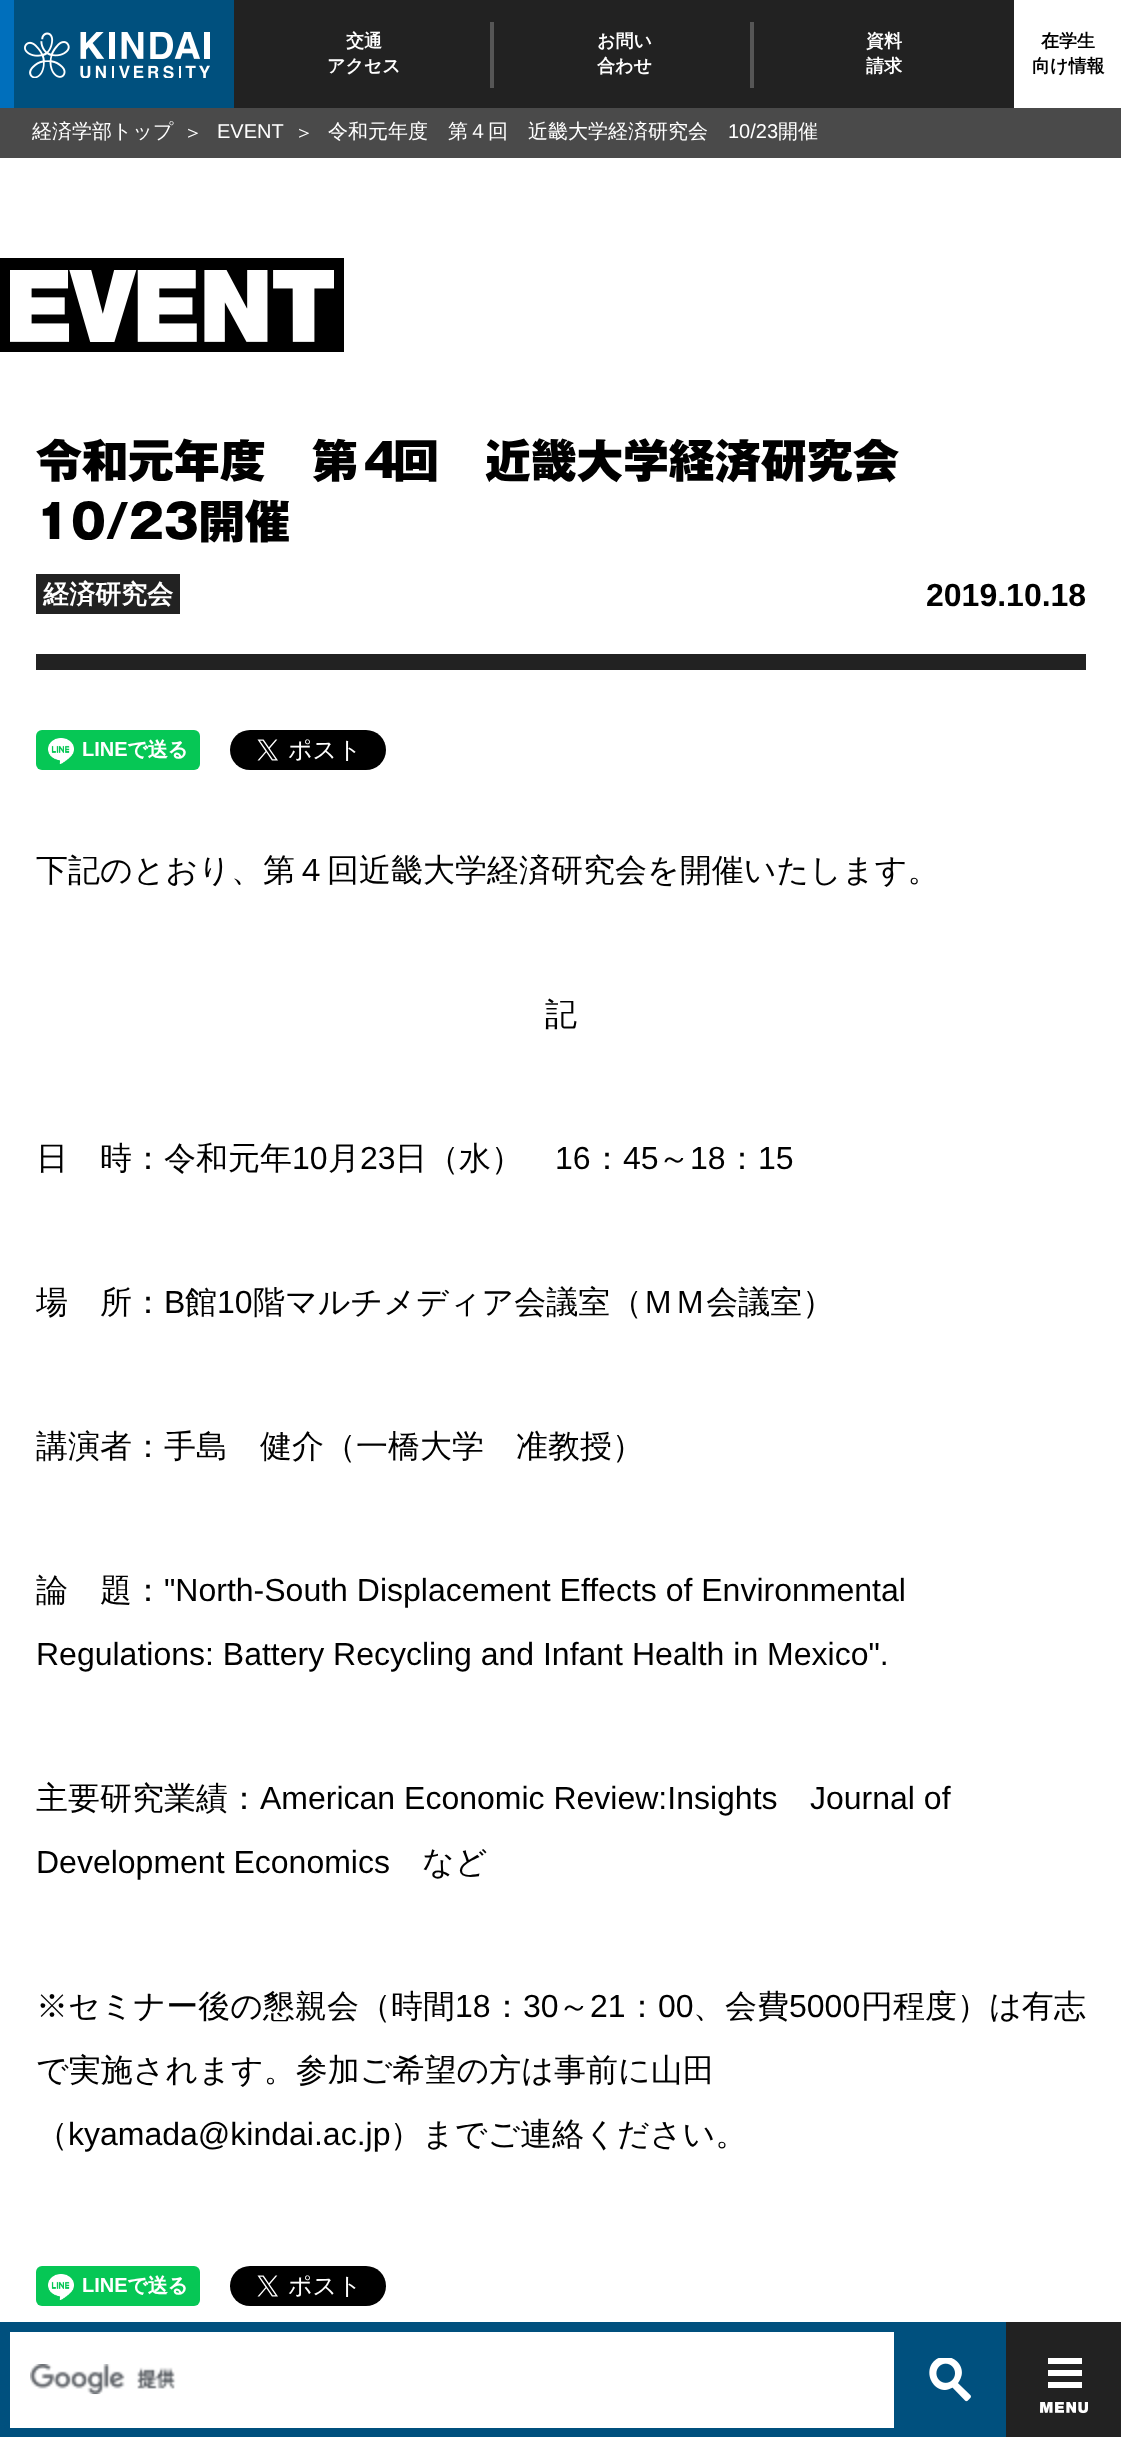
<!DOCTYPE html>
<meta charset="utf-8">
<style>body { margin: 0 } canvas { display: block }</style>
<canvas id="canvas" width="1121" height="2437"></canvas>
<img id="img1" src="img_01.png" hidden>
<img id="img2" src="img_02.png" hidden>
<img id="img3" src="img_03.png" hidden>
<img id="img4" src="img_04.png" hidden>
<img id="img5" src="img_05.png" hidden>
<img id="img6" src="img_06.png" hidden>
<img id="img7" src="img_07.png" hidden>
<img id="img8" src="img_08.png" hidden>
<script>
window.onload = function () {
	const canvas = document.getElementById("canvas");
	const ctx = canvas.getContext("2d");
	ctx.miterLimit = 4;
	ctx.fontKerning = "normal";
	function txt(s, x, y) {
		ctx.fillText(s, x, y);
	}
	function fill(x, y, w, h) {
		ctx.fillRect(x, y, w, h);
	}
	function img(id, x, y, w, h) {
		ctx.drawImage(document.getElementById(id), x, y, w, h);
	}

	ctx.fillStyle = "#FFFFFF";
	fill(0, 0, 1121, 2437);
	ctx.fillStyle = "#006FBC";
	fill(0, 0, 14, 108);
	ctx.fillStyle = "#00507E";
	fill(14, 0, 220, 108);
	img("img1", 24, 32, 186, 46);
	ctx.fillStyle = "#222222";
	fill(234, 0, 780, 108);
	ctx.fillStyle = "#565656";
	fill(490, 22, 4, 66);
	fill(750, 22, 4, 66);
	ctx.fillStyle = "#4A4A4A";
	fill(0, 108, 1121, 50);
	ctx.fillStyle = "#000000";
	fill(0, 258, 344, 94);
	img("img2", 10, 270, 324, 72);
	ctx.fillStyle = "#222222";
	fill(36, 654, 1050, 16);
	fill(36, 574, 144, 40);
	img("img3", 36, 730, 164, 40);
	img("img4", 230, 730, 156, 40);
	img("img3", 36, 2266, 164, 40);
	img("img5", 230, 2266, 156, 40);
	ctx.fillStyle = "#00507E";
	fill(894, 2322, 112, 115);
	img("img6", 30, 2364, 146, 31);
	fill(10, 2322, 884, 10);
	fill(10, 2428, 884, 9);
	fill(0, 2322, 10, 115);
	img("img7", 929, 2358, 42, 44);
	ctx.fillStyle = "#222222";
	fill(1006, 2322, 115, 115);
	ctx.fillStyle = "#FFFFFF";
	fill(1048, 2358, 34, 6);
	fill(1048, 2370, 34, 6);
	fill(1048, 2382, 34, 6);
	img("img8", 1040, 2402, 48, 12);
	ctx.font = "bold 18px WenQuanYi Zen Hei";
	txt("交通", 346, 47);
	txt("アクセス", 327, 72);
	txt("お問い", 597, 47);
	txt("合わせ", 597, 72);
	txt("資料", 866, 47);
	txt("請求", 866, 72);
	ctx.fillStyle = "#000000";
	txt("在学生", 1041, 47);
	txt("向け情報", 1032, 72);
	ctx.font = "500 20px WenQuanYi Zen Hei";
	ctx.fillStyle = "#FFFFFF";
	txt("経済学部トップ", 32, 138);
	txt("＞", 183, 139);
	ctx.font = "20px Liberation Sans";
	txt("EVENT", 217, 138);
	ctx.font = "500 20px WenQuanYi Zen Hei";
	txt("＞", 294, 139);
	txt("令和元年度　第４回　近畿大学経済研究会", 328, 138);
	ctx.font = "20px Liberation Sans";
	txt("10/23", 728, 138);
	ctx.font = "500 20px WenQuanYi Zen Hei";
	txt("開催", 778, 138);
	ctx.font = "800 46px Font";
	ctx.fillStyle = "#000000";
	txt("令和元年度　第４", 36, 478);
	txt("回　近畿大学経済研究会", 393, 478);
	txt("10/23開催", 36, 539);
	ctx.font = "bold 26px WenQuanYi Zen Hei";
	ctx.fillStyle = "#FFFFFF";
	txt("経済研究会", 43, 603);
	ctx.font = "bold 32px Liberation Sans";
	ctx.fillStyle = "#000000";
	txt("2019.10.18", 926, 606);
	ctx.font = "500 32px WenQuanYi Zen Hei";
	txt("下記のとおり、第４回近畿大学経済研究会を開催いたします。", 36, 881);
	txt("記", 545, 1025);
	txt("日　時：令和元年", 36, 1169);
	ctx.font = "32px Liberation Sans";
	txt("10", 292, 1169);
	ctx.font = "500 32px WenQuanYi Zen Hei";
	txt("月", 328, 1169);
	ctx.font = "32px Liberation Sans";
	txt("23", 360, 1169);
	ctx.font = "500 32px WenQuanYi Zen Hei";
	txt("日（水）", 395, 1169);
	ctx.font = "32px Liberation Sans";
	txt("16", 555, 1169);
	ctx.font = "500 32px WenQuanYi Zen Hei";
	txt("：", 591, 1169);
	ctx.font = "32px Liberation Sans";
	txt("45", 623, 1169);
	ctx.font = "500 32px WenQuanYi Zen Hei";
	txt("～", 658, 1169);
	ctx.font = "32px Liberation Sans";
	txt("18", 690, 1169);
	ctx.font = "500 32px WenQuanYi Zen Hei";
	txt("：", 726, 1169);
	ctx.font = "32px Liberation Sans";
	txt("15", 758, 1169);
	ctx.font = "500 32px WenQuanYi Zen Hei";
	txt("場　所：", 36, 1313);
	ctx.font = "32px Liberation Sans";
	txt("B", 164, 1313);
	ctx.font = "500 32px WenQuanYi Zen Hei";
	txt("館", 185, 1313);
	ctx.font = "32px Liberation Sans";
	txt("10", 217, 1313);
	ctx.font = "500 32px WenQuanYi Zen Hei";
	txt("階マルチメディア会議室（ＭＭ会議室）", 253, 1313);
	txt("講演者：手島　健介（一橋大学　准教授）", 36, 1457);
	txt("論　題：", 36, 1601);
	ctx.font = "32px Liberation Sans";
	txt("\"North-South Displacement Effects of Environmental", 164, 1601);
	txt("Regulations: Battery Recycling and Infant Health in Mexico\".", 36, 1665);
	ctx.font = "500 32px WenQuanYi Zen Hei";
	txt("主要研究業績：", 36, 1809);
	ctx.font = "32px Liberation Sans";
	txt("American Economic Review:Insights", 260, 1809);
	txt("Journal of", 810, 1809);
	txt("Development Economics", 36, 1873);
	ctx.font = "500 32px WenQuanYi Zen Hei";
	txt("など", 422, 1873);
	txt("※セミナー後の懇親会（時間", 36, 2017);
	ctx.font = "32px Liberation Sans";
	txt("18", 455, 2017);
	ctx.font = "500 32px WenQuanYi Zen Hei";
	txt("：", 491, 2017);
	ctx.font = "32px Liberation Sans";
	txt("30", 523, 2017);
	ctx.font = "500 32px WenQuanYi Zen Hei";
	txt("～", 558, 2017);
	ctx.font = "32px Liberation Sans";
	txt("21", 590, 2017);
	ctx.font = "500 32px WenQuanYi Zen Hei";
	txt("：", 626, 2017);
	ctx.font = "32px Liberation Sans";
	txt("00", 658, 2017);
	ctx.font = "500 32px WenQuanYi Zen Hei";
	txt("、会費", 693, 2017);
	ctx.font = "32px Liberation Sans";
	txt("5000", 789, 2017);
	ctx.font = "500 32px WenQuanYi Zen Hei";
	txt("円程度）は有志", 861, 2017);
	txt("で実施されます。参加ご希望の方は事前に山田", 36, 2081);
	txt("（", 36, 2145);
	ctx.font = "32px Liberation Sans";
	txt("kyamada@kindai.ac.jp", 68, 2145);
	ctx.font = "500 32px WenQuanYi Zen Hei";
	txt("）までご連絡ください。", 390, 2145);
};
</script>
